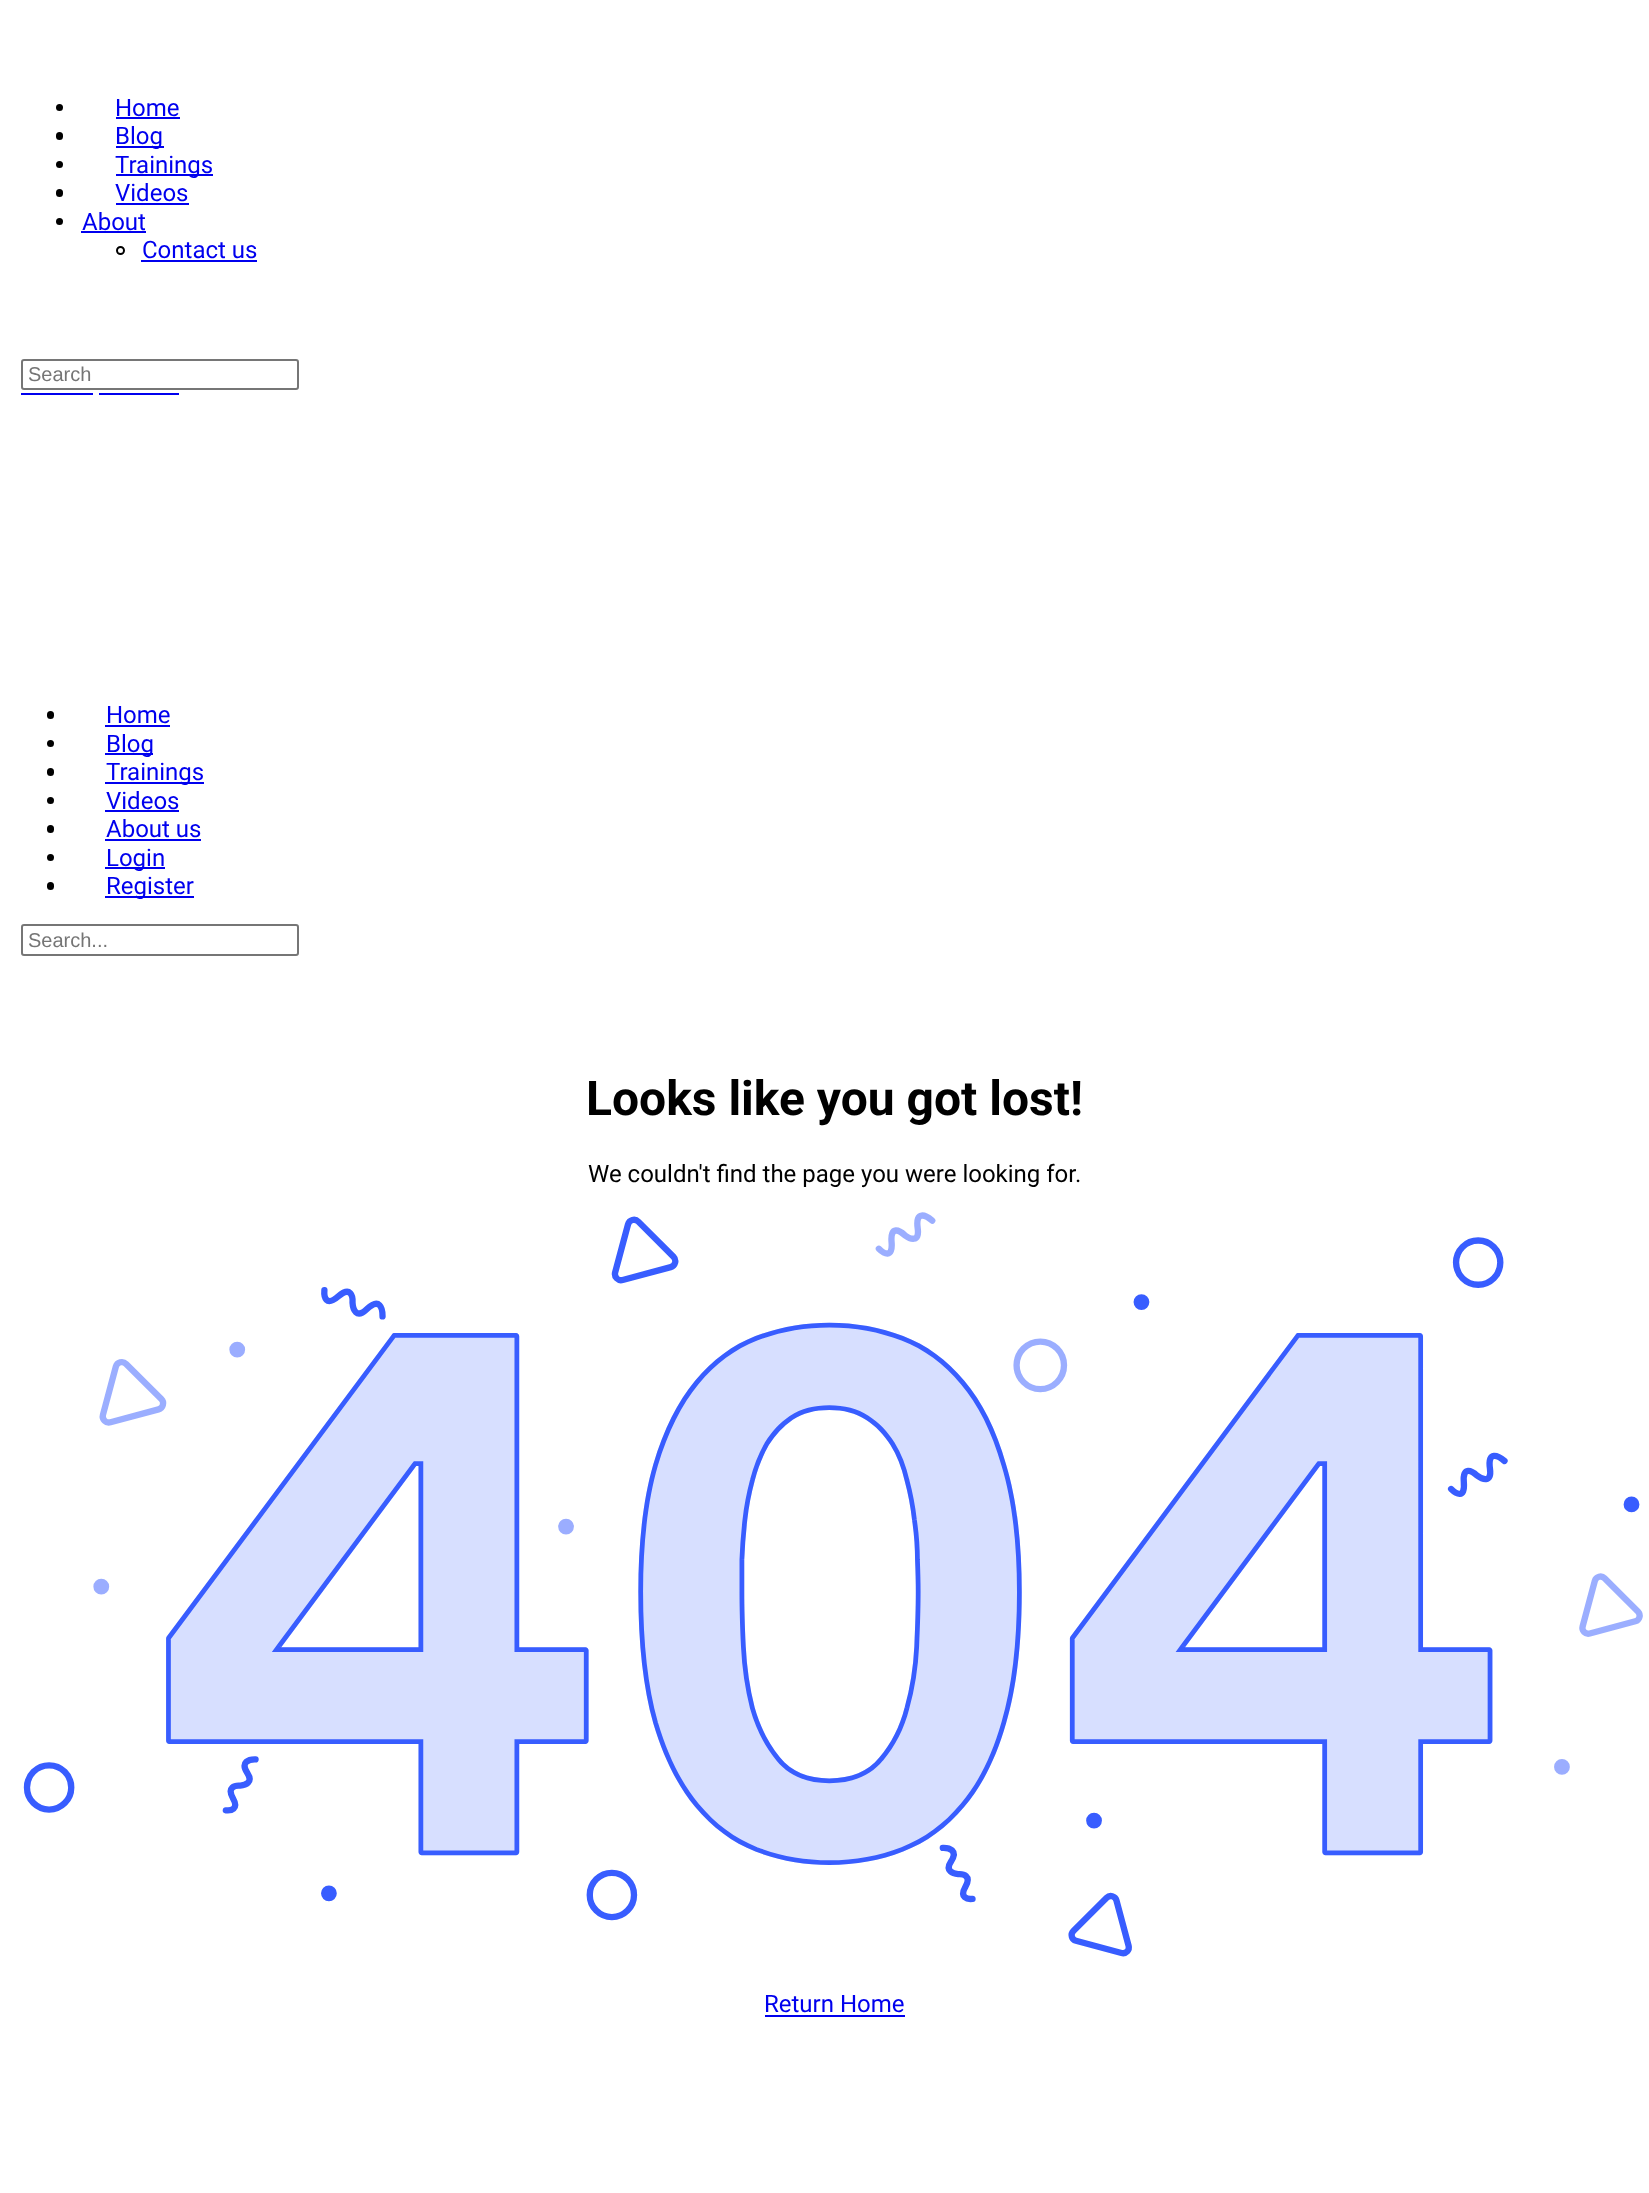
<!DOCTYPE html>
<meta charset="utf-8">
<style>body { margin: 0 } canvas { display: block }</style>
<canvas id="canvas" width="1649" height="2193"></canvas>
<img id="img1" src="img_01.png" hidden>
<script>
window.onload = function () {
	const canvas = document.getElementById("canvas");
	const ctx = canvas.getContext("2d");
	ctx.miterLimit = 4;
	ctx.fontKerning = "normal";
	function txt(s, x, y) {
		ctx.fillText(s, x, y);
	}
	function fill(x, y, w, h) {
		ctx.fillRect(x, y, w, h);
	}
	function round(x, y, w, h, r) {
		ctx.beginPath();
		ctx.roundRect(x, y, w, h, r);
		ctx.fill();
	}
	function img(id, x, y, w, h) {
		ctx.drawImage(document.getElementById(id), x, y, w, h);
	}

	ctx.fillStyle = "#FFFFFF";
	fill(0, 0, 1649, 2193);
	ctx.fillStyle = "#000000";
	ctx.beginPath();
	ctx.arc(59.5, 107.5, 3.5, 0, Math.PI * 2);
	ctx.fill();
	ctx.fillStyle = "#0000EE";
	fill(116, 117, 64, 2);
	ctx.fillStyle = "#000000";
	round(56, 132, 7, 8, 3.5);
	ctx.fillStyle = "#0000EE";
	fill(116, 146, 48, 2);
	ctx.fillStyle = "#000000";
	ctx.beginPath();
	ctx.arc(59.5, 164.5, 3.5, 0, Math.PI * 2);
	ctx.fill();
	ctx.fillStyle = "#0000EE";
	fill(116, 174, 97, 2);
	ctx.fillStyle = "#000000";
	round(56, 189, 7, 8, 3.5);
	ctx.fillStyle = "#0000EE";
	fill(116, 203, 73, 2);
	ctx.fillStyle = "#000000";
	ctx.beginPath();
	ctx.arc(59.5, 221.5, 3.5, 0, Math.PI * 2);
	ctx.fill();
	ctx.fillStyle = "#0000EE";
	fill(81, 231, 65, 2);
	ctx.beginPath();
	ctx.arc(120.5, 250.5, 3.5, 0, Math.PI * 2);
	ctx.strokeStyle = "#000000";
	ctx.lineWidth = 2;
	ctx.stroke();
	fill(141, 260, 116, 2);
	fill(21, 393, 72, 2);
	fill(99, 393, 80, 2);
	ctx.beginPath();
	ctx.roundRect(22, 360, 276, 29, 2);
	ctx.strokeStyle = "#767676";
	ctx.stroke();
	ctx.fillStyle = "#000000";
	round(47, 711, 7, 8, 3.5);
	ctx.fillStyle = "#0000EE";
	fill(105, 725, 65, 2);
	ctx.fillStyle = "#000000";
	ctx.beginPath();
	ctx.arc(50.5, 743.5, 3.5, 0, Math.PI * 2);
	ctx.fill();
	ctx.fillStyle = "#0000EE";
	fill(105, 753, 48, 2);
	ctx.fillStyle = "#000000";
	round(47, 768, 7, 8, 3.5);
	ctx.fillStyle = "#0000EE";
	fill(105, 782, 99, 2);
	ctx.fillStyle = "#000000";
	ctx.beginPath();
	ctx.arc(50.5, 800.5, 3.5, 0, Math.PI * 2);
	ctx.fill();
	ctx.fillStyle = "#0000EE";
	fill(105, 810, 74, 2);
	ctx.fillStyle = "#000000";
	round(47, 825, 7, 8, 3.5);
	ctx.fillStyle = "#0000EE";
	fill(105, 839, 96, 2);
	ctx.fillStyle = "#000000";
	ctx.beginPath();
	ctx.arc(50.5, 857.5, 3.5, 0, Math.PI * 2);
	ctx.fill();
	ctx.fillStyle = "#0000EE";
	fill(105, 867, 60, 2);
	ctx.fillStyle = "#000000";
	round(47, 882, 7, 8, 3.5);
	ctx.fillStyle = "#0000EE";
	fill(105, 896, 89, 2);
	ctx.beginPath();
	ctx.roundRect(22, 925, 276, 30, 2);
	ctx.stroke();
	img("img1", 23, 1212, 1620, 745);
	fill(765, 2015, 140, 2);
	ctx.font = "24px Roboto";
	txt("Home", 115, 116);
	txt("Blog", 115, 144);
	txt("Trainings", 115, 173);
	txt("Videos", 115, 201);
	txt("About", 82, 230);
	txt("Contact us", 142, 258);
	ctx.font = "20px Liberation Sans";
	ctx.fillStyle = "#757575";
	txt("Search", 28, 381);
	ctx.font = "24px Roboto";
	ctx.fillStyle = "#0000EE";
	txt("Home", 106, 723);
	txt("Blog", 106, 752);
	txt("Trainings", 106, 780);
	txt("Videos", 106, 809);
	txt("About us", 106, 837);
	txt("Login", 106, 866);
	txt("Register", 106, 894);
	ctx.font = "20px Liberation Sans";
	ctx.fillStyle = "#757575";
	txt("Search...", 28, 947);
	ctx.font = "bold 48px Roboto";
	ctx.fillStyle = "#000000";
	txt("Looks like you got lost!", 586, 1115);
	ctx.font = "24px Roboto";
	txt("We couldn't find the page you were looking for.", 588, 1182);
	ctx.fillStyle = "#0000EE";
	txt("Return Home", 764, 2012);
};
</script>
